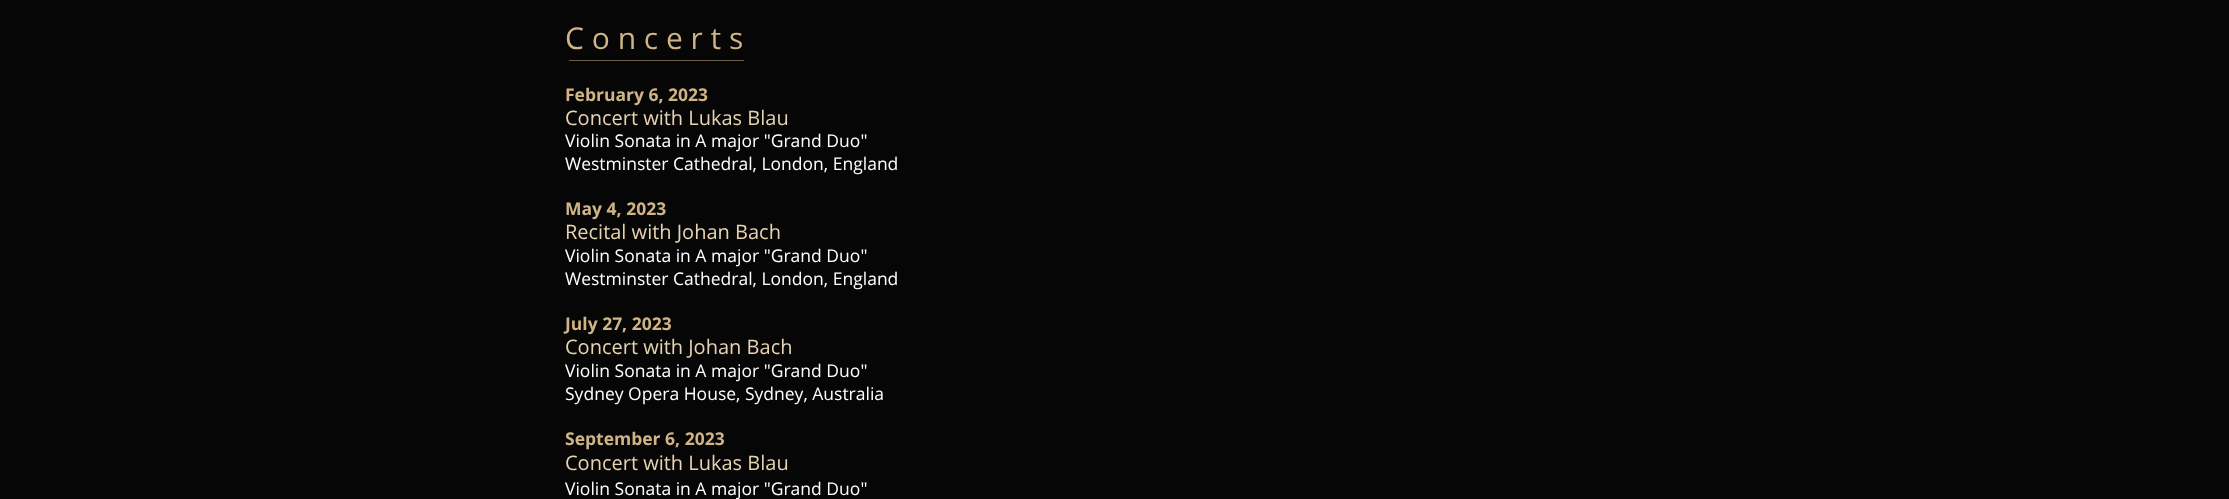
<!DOCTYPE html>
<meta charset="utf-8">
<style>body { margin: 0 } canvas { display: block }</style>
<canvas id="canvas" width="2229" height="499"></canvas>
<script>
window.onload = function () {
	const canvas = document.getElementById("canvas");
	const ctx = canvas.getContext("2d");
	ctx.miterLimit = 4;
	ctx.fontKerning = "none";
	function txt(s, x, y) {
		ctx.fillText(s, x, y);
	}
	function fill(x, y, w, h) {
		ctx.fillRect(x, y, w, h);
	}

	ctx.fillStyle = "#070606";
	fill(0, 0, 2229, 499);
	ctx.fillStyle = "#6B5D46";
	fill(569, 60, 175, 1);
	ctx.font = "30px Open Sans";
	ctx.fillStyle = "#CFB486";
	txt("C o n c e r t s", 565, 49);
	ctx.font = "bold 17.5px Open Sans";
	txt("February 6, 2023", 565, 101);
	ctx.font = "20px Open Sans";
	ctx.fillStyle = "#E7D3B1";
	txt("Concert with Lukas Blau", 565, 125);
	ctx.font = "17.5px Open Sans";
	ctx.fillStyle = "#FFFFFF";
	txt("Violin Sonata in A major \"Grand Duo\"", 565, 147);
	txt("Westminster Cathedral, London, England", 565, 170);
	ctx.font = "bold 17.5px Open Sans";
	ctx.fillStyle = "#CFB486";
	txt("May 4, 2023", 565, 215);
	ctx.font = "20px Open Sans";
	ctx.fillStyle = "#E7D3B1";
	txt("Recital with Johan Bach", 565, 239);
	ctx.font = "17.5px Open Sans";
	ctx.fillStyle = "#FFFFFF";
	txt("Violin Sonata in A major \"Grand Duo\"", 565, 262);
	txt("Westminster Cathedral, London, England", 565, 285);
	ctx.font = "bold 17.5px Open Sans";
	ctx.fillStyle = "#CFB486";
	txt("July 27, 2023", 565, 330);
	ctx.font = "20px Open Sans";
	ctx.fillStyle = "#E7D3B1";
	txt("Concert with Johan Bach", 565, 354);
	ctx.font = "17.5px Open Sans";
	ctx.fillStyle = "#FFFFFF";
	txt("Violin Sonata in A major \"Grand Duo\"", 565, 377);
	txt("Sydney Opera House, Sydney, Australia", 565, 400);
	ctx.font = "bold 17.5px Open Sans";
	ctx.fillStyle = "#CFB486";
	txt("September 6, 2023", 565, 445);
	ctx.font = "20px Open Sans";
	ctx.fillStyle = "#E7D3B1";
	txt("Concert with Lukas Blau", 565, 470);
	ctx.font = "17.5px Open Sans";
	ctx.fillStyle = "#FFFFFF";
	txt("Violin Sonata in A major \"Grand Duo\"", 565, 495);
};
</script>
